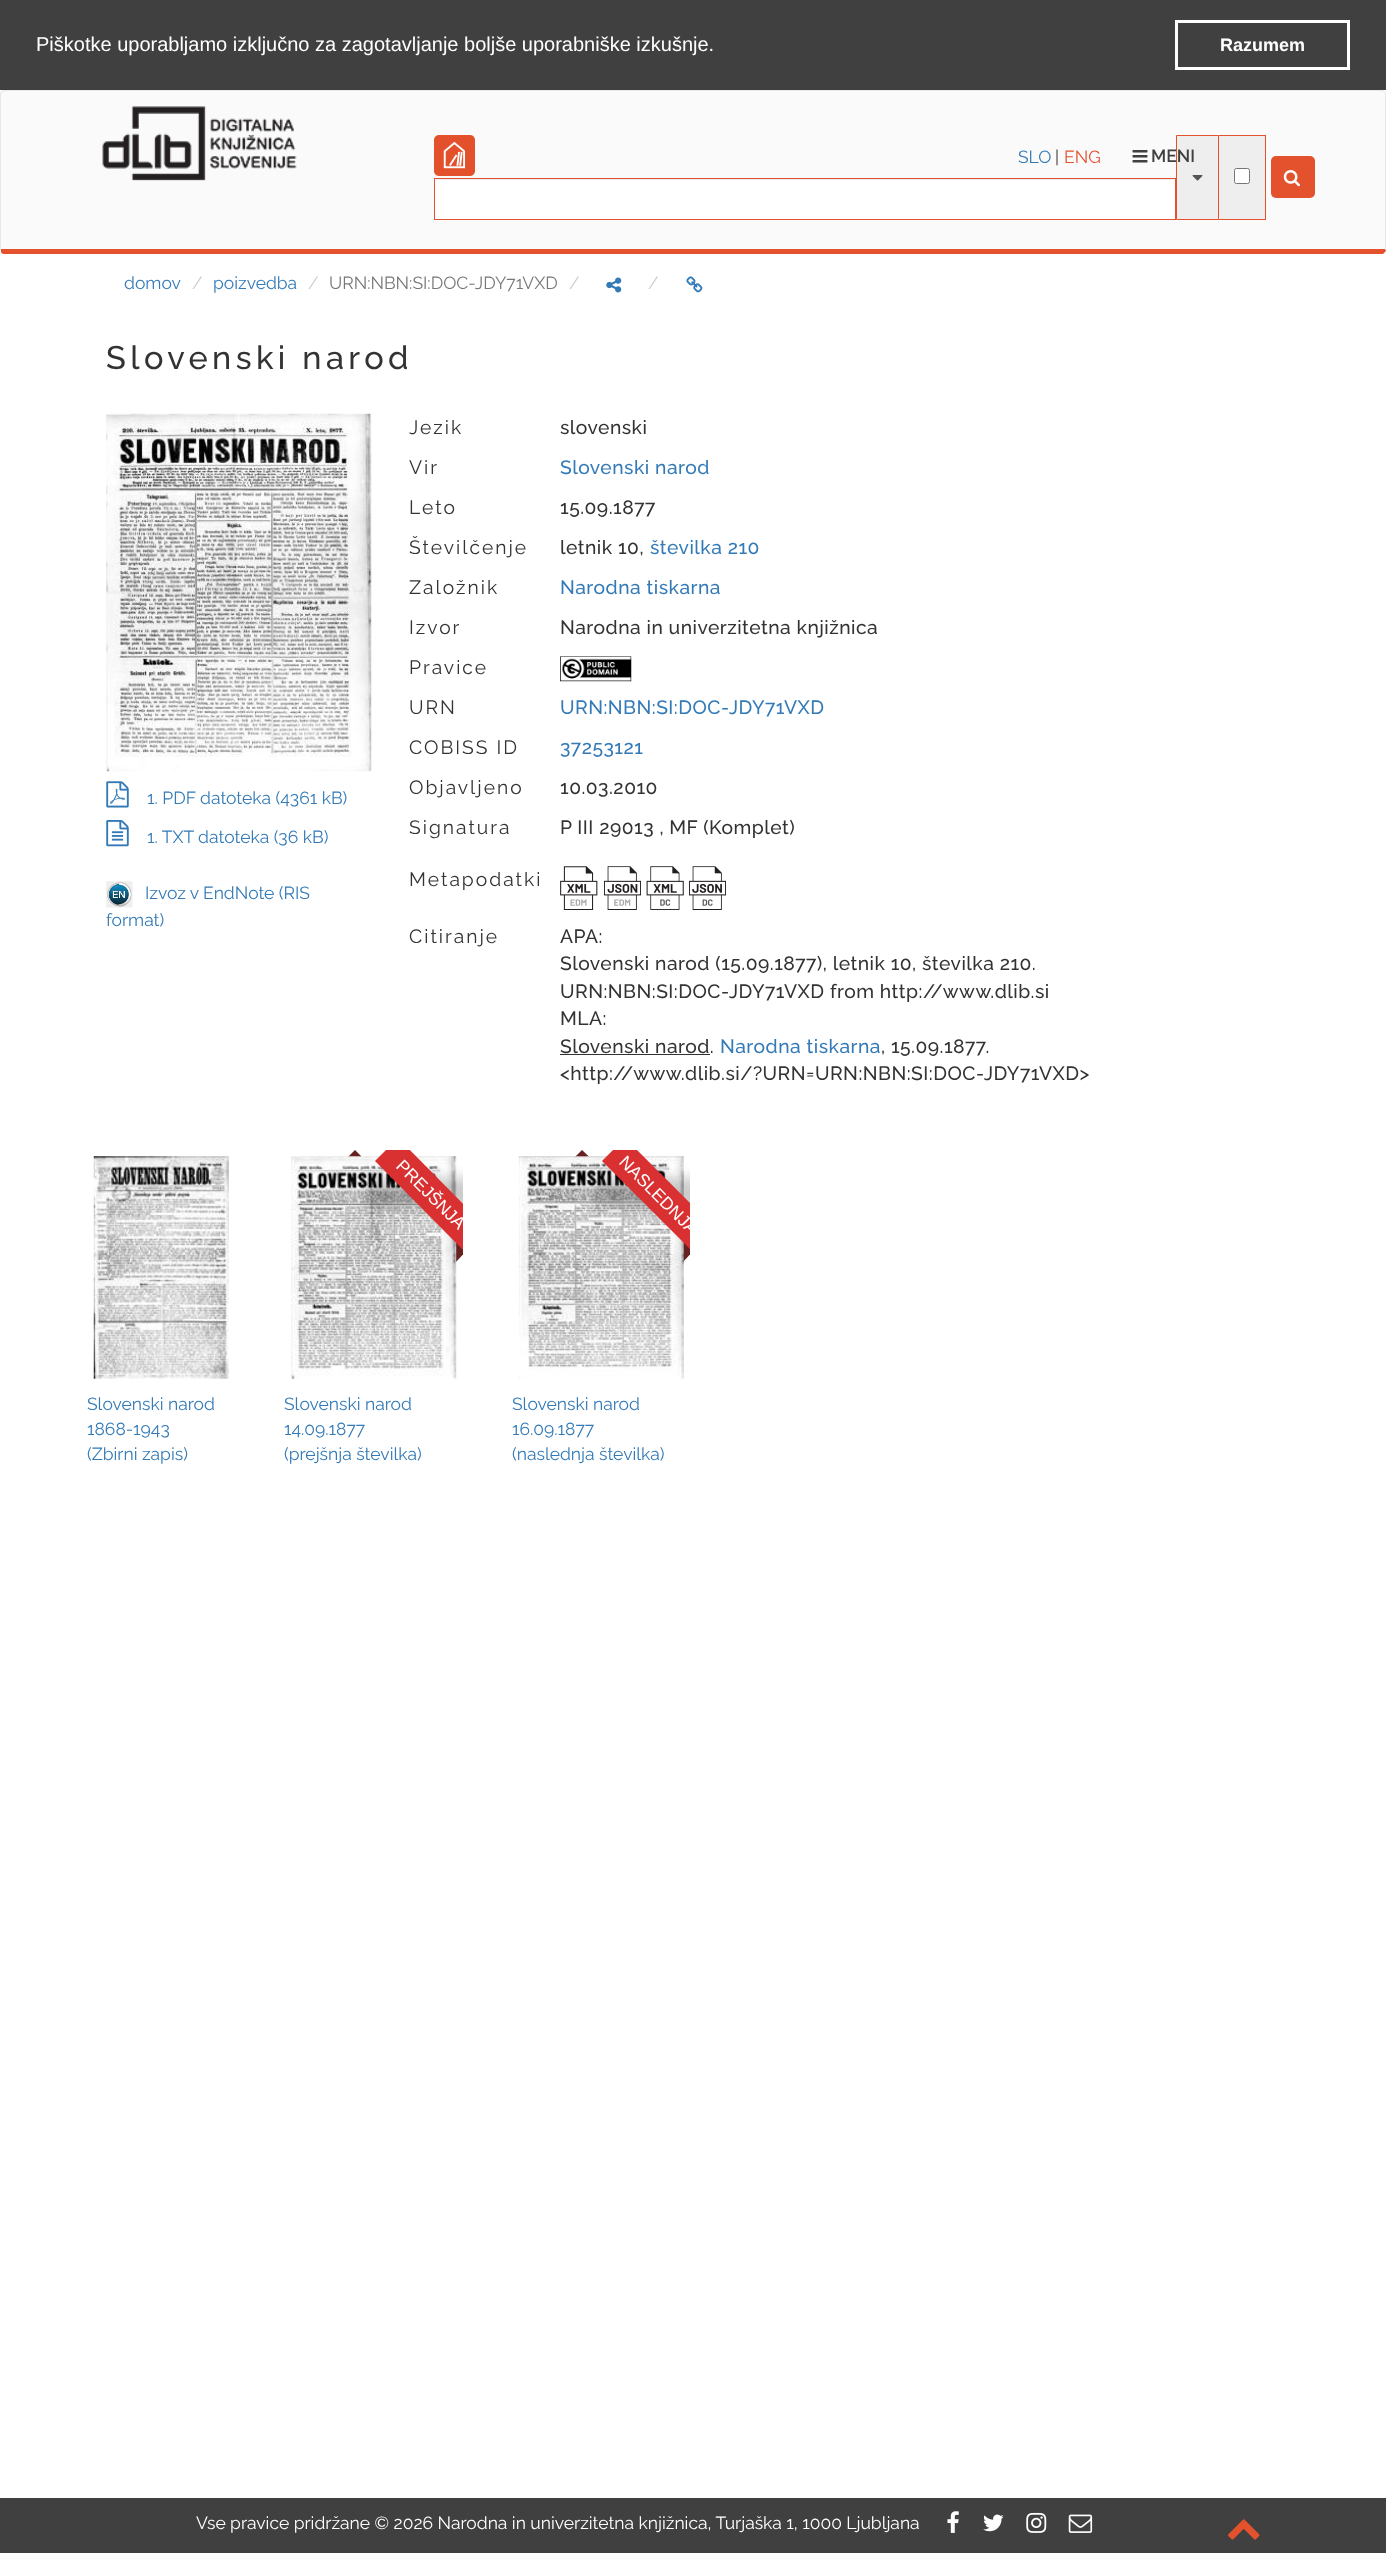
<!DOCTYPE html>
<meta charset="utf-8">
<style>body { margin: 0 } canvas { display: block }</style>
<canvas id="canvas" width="1386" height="2553"></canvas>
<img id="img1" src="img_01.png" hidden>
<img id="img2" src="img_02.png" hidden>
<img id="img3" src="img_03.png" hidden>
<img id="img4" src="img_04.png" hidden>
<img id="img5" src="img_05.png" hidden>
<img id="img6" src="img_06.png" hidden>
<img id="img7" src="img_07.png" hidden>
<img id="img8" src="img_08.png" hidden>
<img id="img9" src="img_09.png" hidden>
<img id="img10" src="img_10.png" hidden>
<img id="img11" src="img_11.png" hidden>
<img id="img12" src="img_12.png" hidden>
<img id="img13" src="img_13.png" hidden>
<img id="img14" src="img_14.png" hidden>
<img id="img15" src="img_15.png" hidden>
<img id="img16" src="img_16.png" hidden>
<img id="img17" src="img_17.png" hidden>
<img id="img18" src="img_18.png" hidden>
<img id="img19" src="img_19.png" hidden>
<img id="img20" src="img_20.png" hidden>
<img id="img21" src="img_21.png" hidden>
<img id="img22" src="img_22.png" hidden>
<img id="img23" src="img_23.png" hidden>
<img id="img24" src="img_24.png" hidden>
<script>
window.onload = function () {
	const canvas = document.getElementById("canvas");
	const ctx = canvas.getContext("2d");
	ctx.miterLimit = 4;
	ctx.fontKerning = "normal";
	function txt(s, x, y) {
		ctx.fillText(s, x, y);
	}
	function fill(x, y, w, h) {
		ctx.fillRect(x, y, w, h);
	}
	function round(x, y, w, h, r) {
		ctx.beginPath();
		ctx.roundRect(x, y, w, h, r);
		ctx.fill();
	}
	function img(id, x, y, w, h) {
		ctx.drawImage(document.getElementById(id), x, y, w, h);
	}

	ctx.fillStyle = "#FFFFFF";
	fill(0, 0, 1386, 2553);
	ctx.fillStyle = "#404040";
	fill(0, 0, 1386, 90);
	ctx.strokeStyle = "#FFFFFF";
	ctx.lineWidth = 3;
	ctx.strokeRect(1176.5, 21.5, 172, 47);
	ctx.fillStyle = "#FAFAFA";
	ctx.beginPath();
	ctx.moveTo(5, 91);
	ctx.lineTo(1381, 91);
	ctx.bezierCurveTo(1383, 91, 1385, 93, 1385, 95);
	ctx.lineTo(1385, 249);
	ctx.lineTo(1, 249);
	ctx.lineTo(1, 95);
	ctx.bezierCurveTo(1, 93, 3, 91, 5, 91);
	ctx.closePath();
	ctx.fill();
	ctx.fillStyle = "#E7E7E7";
	ctx.beginPath();
	ctx.moveTo(5, 90);
	ctx.bezierCurveTo(4, 90, 2, 90, 1, 91);
	ctx.lineTo(2, 92);
	ctx.lineTo(5, 91);
	ctx.lineTo(1381, 91);
	ctx.lineTo(1384, 92);
	ctx.lineTo(1385, 92);
	ctx.bezierCurveTo(1384, 91, 1383, 90, 1381, 90);
	ctx.closePath();
	ctx.fill();
	ctx.beginPath();
	ctx.moveTo(1385, 92);
	ctx.bezierCurveTo(1386, 92, 1386, 94, 1386, 95);
	ctx.lineTo(1386, 249);
	ctx.lineTo(1386, 251);
	ctx.lineTo(1385, 249);
	ctx.lineTo(1385, 95);
	ctx.bezierCurveTo(1385, 94, 1385, 93, 1384, 92);
	ctx.closePath();
	ctx.fill();
	ctx.fillStyle = "#E3512D";
	ctx.beginPath();
	ctx.moveTo(3, 254);
	ctx.bezierCurveTo(2, 253, 1, 253, 1, 252);
	ctx.lineTo(1, 249);
	ctx.lineTo(1385, 249);
	ctx.lineTo(1386, 251);
	ctx.bezierCurveTo(1385, 252, 1384, 253, 1383, 254);
	ctx.closePath();
	ctx.fill();
	ctx.fillStyle = "#E7E7E7";
	ctx.beginPath();
	ctx.moveTo(0, 95);
	ctx.lineTo(0, 249);
	ctx.lineTo(1, 252);
	ctx.lineTo(1, 249);
	ctx.lineTo(1, 95);
	ctx.lineTo(2, 92);
	ctx.lineTo(1, 91);
	ctx.bezierCurveTo(0, 92, 0, 94, 0, 95);
	ctx.closePath();
	ctx.fill();
	img("img1", 102, 106, 195, 75);
	img("img2", 434, 135, 41, 41);
	ctx.fillStyle = "#EEEEEE";
	ctx.beginPath();
	ctx.rect(1176.5, 135.5, 42, 84);
	ctx.fill();
	ctx.strokeStyle = "#E3512D";
	ctx.lineWidth = 1;
	ctx.stroke();
	img("img3", 1192, 175, 11, 6);
	fill(1219, 136, 46, 83);
	ctx.fillStyle = "#E3512D";
	fill(1219, 135, 47, 1);
	fill(1265, 135, 1, 85);
	fill(1219, 219, 47, 1);
	ctx.fillStyle = "#FFFFFF";
	ctx.beginPath();
	ctx.roundRect(1234.5, 168.5, 15, 15, 2);
	ctx.fill();
	ctx.strokeStyle = "#767676";
	ctx.stroke();
	fill(435, 180, 740, 39);
	ctx.fillStyle = "#ECECEC";
	fill(435, 179, 740, 1);
	ctx.strokeStyle = "#E3512D";
	ctx.strokeRect(434.5, 178.5, 741, 41);
	ctx.fillStyle = "#E3512D";
	round(1271, 156, 44, 42, 5);
	img("img4", 1283, 170, 17, 17);
	img("img5", 1132, 150, 16, 13);
	img("img6", 606, 277, 16, 16);
	img("img7", 686, 276, 17, 17);
	img("img8", 106, 413, 266, 359);
	img("img9", 106, 781, 23, 27);
	img("img10", 106, 820, 23, 27);
	img("img11", 106, 881, 27, 27);
	img("img12", 560, 656, 72, 26);
	img("img13", 560, 866, 38, 44);
	img("img14", 604, 866, 37, 44);
	img("img15", 646, 866, 38, 44);
	img("img16", 689, 866, 37, 44);
	ctx.fillStyle = "#333333";
	fill(560, 1054, 150, 1);
	img("img17", 93, 1156, 136, 223);
	ctx.fillStyle = "#662121";
	ctx.beginPath();
	ctx.moveTo(376, 1171);
	ctx.lineTo(334, 1171);
	ctx.lineTo(355, 1150);
	ctx.closePath();
	ctx.fill();
	ctx.save();
	ctx.beginPath();
	ctx.rect(285, 1150, 178, 235);
	ctx.clip();
	ctx.beginPath();
	ctx.moveTo(432, 1242);
	ctx.lineTo(475, 1242);
	ctx.lineTo(454, 1264);
	ctx.closePath();
	ctx.fill();
	ctx.restore();
	img("img18", 291, 1156, 166, 223);
	ctx.save();
	ctx.beginPath();
	ctx.rect(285, 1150, 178, 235);
	ctx.clip();
	ctx.fillStyle = "rgba(0, 0, 0, 0.2)";
	ctx.filter = "blur(6.5px)";
	ctx.beginPath();
	ctx.rect(369, 1178, 125, 32);
	ctx.fill();
	ctx.filter = "none";
	ctx.restore();
	ctx.save();
	ctx.beginPath();
	ctx.rect(285, 1150, 178, 235);
	ctx.clip();
	ctx.fillStyle = "#D93131";
	ctx.beginPath();
	ctx.moveTo(398, 1138);
	ctx.lineTo(486, 1227);
	ctx.lineTo(463, 1250);
	ctx.lineTo(375, 1161);
	ctx.closePath();
	ctx.fill();
	ctx.restore();
	ctx.beginPath();
	ctx.moveTo(604, 1171);
	ctx.lineTo(561, 1171);
	ctx.lineTo(582, 1150);
	ctx.closePath();
	ctx.fill();
	ctx.save();
	ctx.beginPath();
	ctx.rect(513, 1150, 177, 235);
	ctx.clip();
	ctx.beginPath();
	ctx.moveTo(660, 1242);
	ctx.lineTo(702, 1242);
	ctx.lineTo(681, 1264);
	ctx.closePath();
	ctx.fill();
	ctx.restore();
	img("img19", 518, 1156, 166, 223);
	ctx.save();
	ctx.beginPath();
	ctx.rect(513, 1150, 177, 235);
	ctx.clip();
	ctx.fillStyle = "rgba(0, 0, 0, 0.2)";
	ctx.filter = "blur(6.5px)";
	ctx.beginPath();
	ctx.rect(596, 1178, 125, 32);
	ctx.fill();
	ctx.filter = "none";
	ctx.restore();
	ctx.save();
	ctx.beginPath();
	ctx.rect(513, 1150, 177, 235);
	ctx.clip();
	ctx.fillStyle = "#D93131";
	ctx.beginPath();
	ctx.moveTo(625, 1138);
	ctx.lineTo(714, 1227);
	ctx.lineTo(691, 1250);
	ctx.lineTo(602, 1161);
	ctx.closePath();
	ctx.fill();
	ctx.restore();
	ctx.fillStyle = "#404040";
	fill(0, 2498, 1386, 55);
	img("img20", 947, 2511, 12, 22);
	img("img21", 983, 2514, 21, 18);
	img("img22", 1026, 2512, 21, 21);
	img("img23", 1068, 2514, 25, 19);
	img("img24", 1228, 2519, 32, 21);
	ctx.font = "20px Liberation Sans";
	ctx.fillStyle = "#FFFFFF";
	txt("Piškotke uporabljamo izključno za zagotavljanje boljše uporabniške izkušnje.", 36, 51);
	ctx.font = "bold 18px Liberation Sans";
	txt("Razumem", 1220, 51);
	ctx.font = "17.5px Raleway";
	ctx.fillStyle = "#337AB7";
	txt("SLO", 1018, 163);
	ctx.fillStyle = "#333333";
	txt("|", 1055, 163);
	ctx.fillStyle = "#E3512D";
	txt("ENG", 1064, 163);
	ctx.font = "600 17.5px Raleway";
	ctx.fillStyle = "#404040";
	txt("MENI", 1151, 162);
	ctx.font = "17.5px Raleway";
	ctx.fillStyle = "#337AB7";
	txt("domov", 124, 289);
	ctx.fillStyle = "#CCCCCC";
	txt("/", 192, 289);
	ctx.fillStyle = "#337AB7";
	txt("poizvedba", 213, 289);
	ctx.fillStyle = "#CCCCCC";
	txt("/", 308, 289);
	ctx.fillStyle = "#777777";
	txt("URN:NBN:SI:DOC-JDY71VXD", 329, 289);
	ctx.fillStyle = "#CCCCCC";
	txt("/", 569, 289);
	txt("/", 648, 289);
	ctx.letterSpacing = "4.4px";
	ctx.font = "500 32.5px Raleway";
	ctx.fillStyle = "#333333";
	txt("Slovenski narod", 106, 369);
	ctx.letterSpacing = "0px";
	ctx.font = "17.5px Raleway";
	ctx.fillStyle = "#337AB7";
	txt("1. PDF datoteka (4361 kB)", 147, 804);
	txt("1. TXT datoteka (36 kB)", 147, 843);
	txt("Izvoz v EndNote (RIS", 145, 899);
	txt("format)", 106, 926);
	ctx.letterSpacing = "2px";
	ctx.font = "19.25px Raleway";
	ctx.fillStyle = "#333333";
	txt("Jezik", 409, 434);
	ctx.letterSpacing = "0.48px";
	ctx.font = "500 19.25px Raleway";
	txt("slovenski", 560, 434);
	ctx.letterSpacing = "2px";
	ctx.font = "19.25px Raleway";
	txt("Vir", 409, 474);
	ctx.letterSpacing = "0.48px";
	ctx.font = "500 19.25px Raleway";
	ctx.fillStyle = "#337AB7";
	txt("Slovenski narod", 560, 474);
	ctx.letterSpacing = "2px";
	ctx.font = "19.25px Raleway";
	ctx.fillStyle = "#333333";
	txt("Leto", 409, 514);
	ctx.letterSpacing = "0.48px";
	ctx.font = "500 19.25px Raleway";
	txt("15.09.1877", 560, 514);
	ctx.letterSpacing = "2px";
	ctx.font = "19.25px Raleway";
	txt("Številčenje", 409, 554);
	ctx.letterSpacing = "0.48px";
	ctx.font = "500 19.25px Raleway";
	txt("letnik 10,", 560, 554);
	ctx.fillStyle = "#337AB7";
	txt("številka 210", 650, 554);
	ctx.letterSpacing = "2px";
	ctx.font = "19.25px Raleway";
	ctx.fillStyle = "#333333";
	txt("Založnik", 409, 594);
	ctx.letterSpacing = "0.48px";
	ctx.font = "500 19.25px Raleway";
	ctx.fillStyle = "#337AB7";
	txt("Narodna tiskarna", 560, 594);
	ctx.letterSpacing = "2px";
	ctx.font = "19.25px Raleway";
	ctx.fillStyle = "#333333";
	txt("Izvor", 409, 634);
	ctx.letterSpacing = "0.48px";
	ctx.font = "500 19.25px Raleway";
	txt("Narodna in univerzitetna knjižnica", 560, 634);
	ctx.letterSpacing = "2px";
	ctx.font = "19.25px Raleway";
	txt("Pravice", 409, 674);
	txt("URN", 409, 714);
	ctx.letterSpacing = "0.48px";
	ctx.font = "500 19.25px Raleway";
	ctx.fillStyle = "#337AB7";
	txt("URN:NBN:SI:DOC-JDY71VXD", 560, 714);
	ctx.letterSpacing = "2px";
	ctx.font = "19.25px Raleway";
	ctx.fillStyle = "#333333";
	txt("COBISS ID", 409, 754);
	ctx.letterSpacing = "0.48px";
	ctx.font = "500 19.25px Raleway";
	ctx.fillStyle = "#337AB7";
	txt("37253121", 560, 754);
	ctx.letterSpacing = "2px";
	ctx.font = "19.25px Raleway";
	ctx.fillStyle = "#333333";
	txt("Objavljeno", 409, 794);
	ctx.letterSpacing = "0.48px";
	ctx.font = "500 19.25px Raleway";
	txt("10.03.2010", 560, 794);
	ctx.letterSpacing = "2px";
	ctx.font = "19.25px Raleway";
	txt("Signatura", 409, 834);
	ctx.letterSpacing = "0.48px";
	ctx.font = "500 19.25px Raleway";
	txt("P III 29013 , MF (Komplet)", 560, 834);
	ctx.letterSpacing = "2px";
	ctx.font = "19.25px Raleway";
	txt("Metapodatki", 409, 886);
	txt("Citiranje", 409, 943);
	ctx.letterSpacing = "0.48px";
	ctx.font = "500 19.25px Raleway";
	txt("APA:", 560, 943);
	txt("Slovenski narod (15.09.1877), letnik 10, številka 210.", 560, 970);
	txt("URN:NBN:SI:DOC-JDY71VXD from http://www.dlib.si", 560, 998);
	txt("MLA:", 560, 1025);
	txt("Slovenski narod.", 560, 1053);
	ctx.fillStyle = "#337AB7";
	txt("Narodna tiskarna", 720, 1053);
	ctx.fillStyle = "#333333";
	txt(", 15.09.1877.", 881, 1053);
	txt("<http://www.dlib.si/?URN=URN:NBN:SI:DOC-JDY71VXD>", 560, 1080);
	ctx.letterSpacing = "0px";
	ctx.font = "17.5px Raleway";
	ctx.fillStyle = "#337AB7";
	txt("Slovenski narod", 87, 1410);
	txt("1868-1943", 87, 1435);
	txt("(Zbirni zapis)", 87, 1460);
	ctx.font = "17.5px Liberation Sans";
	ctx.fillStyle = "#FFFFFF";
	ctx.save();
	ctx.translate(395, 1167);
	ctx.rotate(45 * Math.PI / 180);
	ctx.fillText("PREJŠNJA", 0, 0);
	ctx.restore();
	ctx.font = "17.5px Raleway";
	ctx.fillStyle = "#337AB7";
	txt("Slovenski narod", 284, 1410);
	txt("14.09.1877", 284, 1435);
	txt("(prejšnja številka)", 284, 1460);
	ctx.save();
	ctx.beginPath();
	ctx.rect(513, 1150, 177, 235);
	ctx.clip();
	ctx.font = "17.5px Liberation Sans";
	ctx.fillStyle = "#FFFFFF";
	ctx.save();
	ctx.translate(618, 1163);
	ctx.rotate(45 * Math.PI / 180);
	ctx.fillText("NASLEDNJA", 0, 0);
	ctx.restore();
	ctx.restore();
	txt("Slovenski narod", 512, 1410);
	txt("16.09.1877", 512, 1435);
	txt("(naslednja številka)", 512, 1460);
	ctx.fillStyle = "#FFFFFF";
	txt("Vse pravice pridržane © 2026 Narodna in univerzitetna knjižnica, Turjaška 1, 1000 Ljubljana", 196, 2529);
};
</script>
